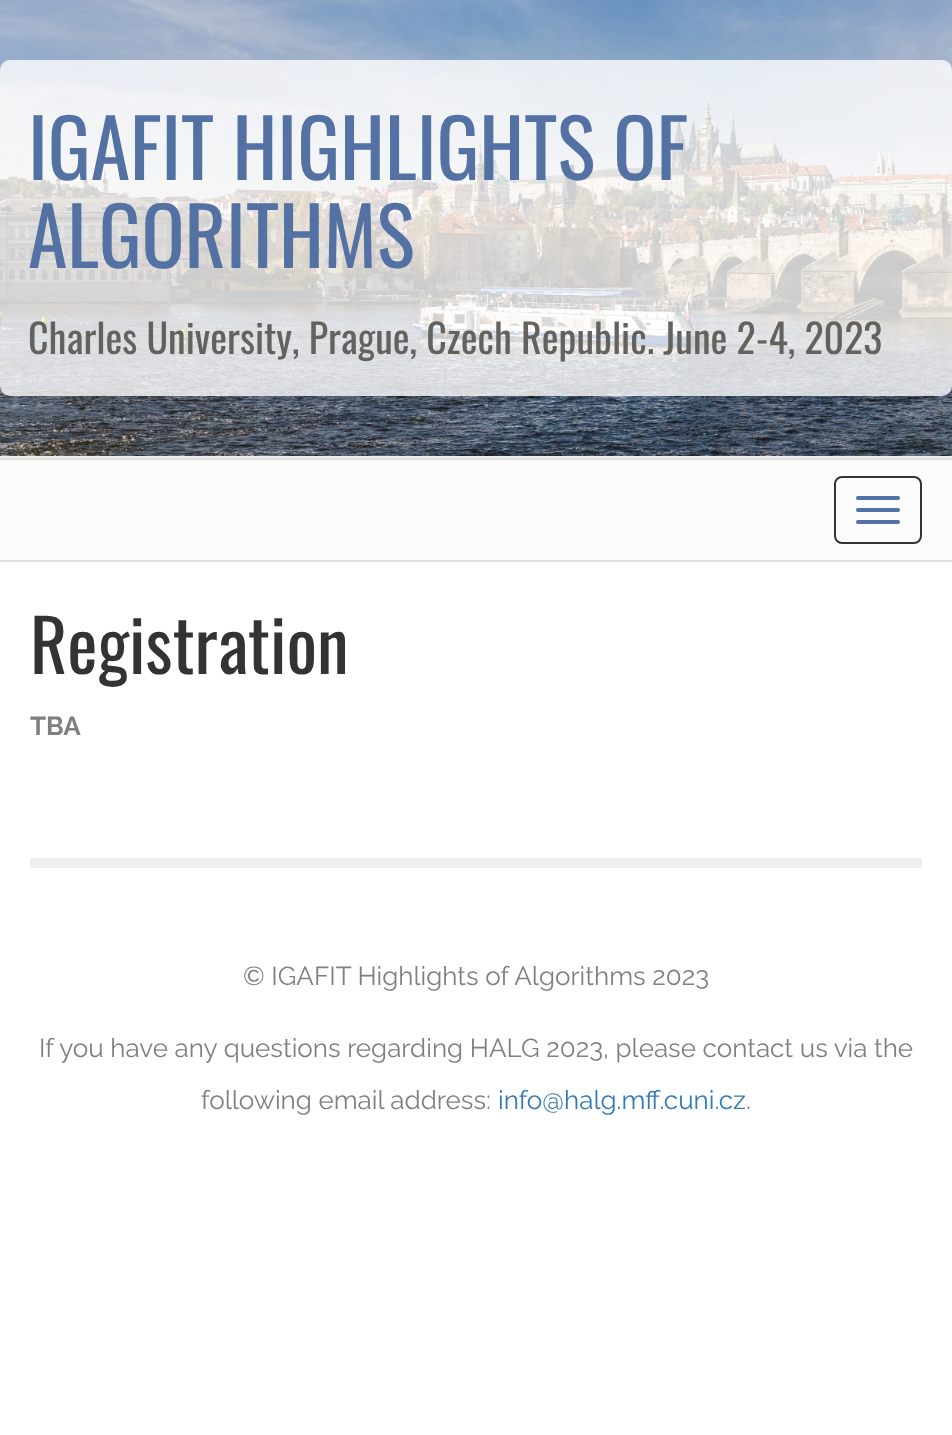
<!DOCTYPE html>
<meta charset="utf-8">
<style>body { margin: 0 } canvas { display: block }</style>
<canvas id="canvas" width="952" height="1435"></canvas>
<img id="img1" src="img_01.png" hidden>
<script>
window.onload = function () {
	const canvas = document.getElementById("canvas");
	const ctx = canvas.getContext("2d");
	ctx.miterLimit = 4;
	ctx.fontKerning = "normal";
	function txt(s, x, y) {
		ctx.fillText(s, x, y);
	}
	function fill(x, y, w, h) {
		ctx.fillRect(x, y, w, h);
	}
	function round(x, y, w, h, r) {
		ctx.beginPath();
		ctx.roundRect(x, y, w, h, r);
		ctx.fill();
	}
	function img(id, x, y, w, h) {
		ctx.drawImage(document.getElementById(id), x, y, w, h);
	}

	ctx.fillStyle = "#FFFFFF";
	fill(0, 0, 952, 1435);
	img("img1", 0, 0, 952, 456);
	ctx.fillStyle = "#EEEEEE";
	fill(0, 456, 952, 2);
	ctx.fillStyle = "rgba(254, 254, 254, 0.8)";
	round(0, 60, 952, 336, 10);
	ctx.fillStyle = "#FCFCFC";
	fill(0, 460, 952, 100);
	ctx.fillStyle = "#E0DFDB";
	fill(0, 458, 952, 2);
	fill(0, 560, 952, 2);
	ctx.beginPath();
	ctx.roundRect(835, 477, 86, 66, 7);
	ctx.strokeStyle = "#333333";
	ctx.lineWidth = 2;
	ctx.stroke();
	ctx.fillStyle = "#5371A3";
	round(856, 496, 44, 4, 2);
	round(856, 508, 44, 4, 2);
	round(856, 520, 44, 4, 2);
	ctx.fillStyle = "#EEEEEE";
	fill(30, 858, 892, 10);
	ctx.font = "80px Oswald";
	ctx.fillStyle = "#5371A3";
	txt("IGAFIT HIGHLIGHTS OF", 28, 180);
	txt("ALGORITHMS", 28, 268);
	ctx.font = "40px Oswald";
	ctx.fillStyle = "#63625F";
	txt("Charles University, Prague, Czech Republic. June 2-4, 2023", 28, 354);
	ctx.font = "72px Oswald";
	ctx.fillStyle = "#333333";
	txt("Registration", 30, 674);
	ctx.font = "bold 26px Raleway";
	ctx.fillStyle = "#808080";
	txt("TBA", 30, 735);
	ctx.font = "26px Raleway";
	txt("© IGAFIT Highlights of Algorithms 2023", 243, 985);
	txt("If you have any questions regarding HALG 2023, please contact us via the", 39, 1057);
	txt("following email address:", 201, 1109);
	ctx.fillStyle = "#337AB7";
	txt("info@halg.mff.cuni.cz", 498, 1109);
	ctx.fillStyle = "#808080";
	txt(".", 746, 1109);
};
</script>
